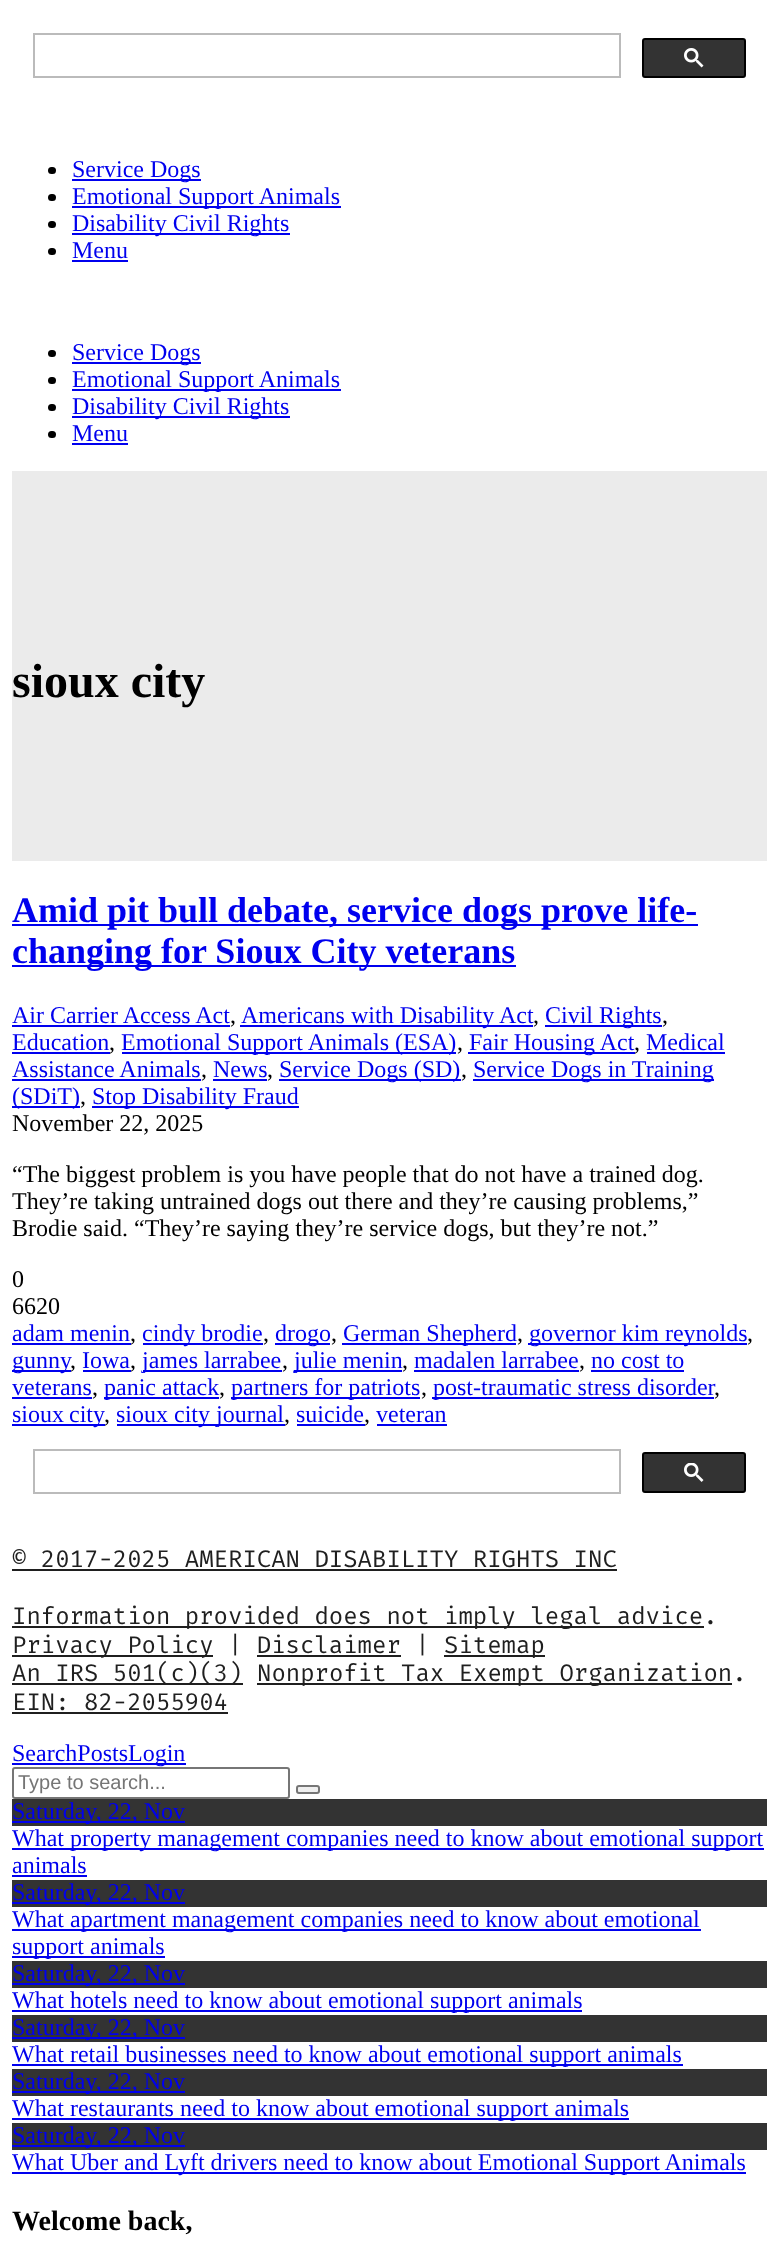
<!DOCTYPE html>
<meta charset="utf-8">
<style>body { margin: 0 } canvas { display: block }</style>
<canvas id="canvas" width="778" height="2262"></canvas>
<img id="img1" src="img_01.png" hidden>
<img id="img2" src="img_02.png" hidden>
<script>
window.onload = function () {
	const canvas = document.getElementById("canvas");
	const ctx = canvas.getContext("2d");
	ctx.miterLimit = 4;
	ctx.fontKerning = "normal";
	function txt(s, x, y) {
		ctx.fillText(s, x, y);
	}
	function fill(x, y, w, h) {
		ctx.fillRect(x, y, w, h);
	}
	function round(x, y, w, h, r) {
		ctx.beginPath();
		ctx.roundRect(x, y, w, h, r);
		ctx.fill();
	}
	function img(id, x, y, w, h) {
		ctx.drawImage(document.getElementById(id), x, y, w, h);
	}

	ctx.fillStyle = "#FFFFFF";
	fill(0, 0, 778, 2262);
	ctx.strokeStyle = "#BBBBBB";
	ctx.lineWidth = 2;
	ctx.strokeRect(34, 34, 586, 43);
	ctx.fillStyle = "#333333";
	ctx.beginPath();
	ctx.roundRect(643, 39, 102, 38, 2);
	ctx.fill();
	ctx.strokeStyle = "#000000";
	ctx.stroke();
	img("img1", 684, 48, 20, 20);
	ctx.fillStyle = "#000000";
	round(48, 167, 8, 7, 3.5);
	ctx.fillStyle = "#0000EE";
	fill(72, 179, 129, 2);
	ctx.fillStyle = "#000000";
	round(48, 194, 8, 7, 3.5);
	ctx.fillStyle = "#0000EE";
	fill(72, 206, 269, 2);
	ctx.fillStyle = "#000000";
	round(48, 221, 8, 7, 3.5);
	ctx.fillStyle = "#0000EE";
	fill(72, 233, 218, 2);
	ctx.fillStyle = "#000000";
	round(48, 248, 8, 7, 3.5);
	ctx.fillStyle = "#0000EE";
	fill(72, 260, 56, 2);
	ctx.fillStyle = "#000000";
	round(48, 350, 8, 7, 3.5);
	ctx.fillStyle = "#0000EE";
	fill(72, 362, 129, 2);
	ctx.fillStyle = "#000000";
	round(48, 377, 8, 7, 3.5);
	ctx.fillStyle = "#0000EE";
	fill(72, 389, 269, 2);
	ctx.fillStyle = "#000000";
	round(48, 404, 8, 7, 3.5);
	ctx.fillStyle = "#0000EE";
	fill(72, 416, 218, 2);
	ctx.fillStyle = "#000000";
	round(48, 431, 8, 7, 3.5);
	ctx.fillStyle = "#0000EE";
	fill(72, 443, 56, 2);
	ctx.fillStyle = "#EBEBEB";
	fill(12, 471, 755, 390);
	ctx.fillStyle = "#0000EE";
	fill(12, 924, 686, 2);
	fill(12, 965, 504, 2);
	fill(12, 1025, 218, 2);
	fill(240, 1025, 293, 2);
	fill(545, 1025, 117, 2);
	fill(12, 1052, 98, 2);
	fill(122, 1052, 334, 2);
	fill(468, 1052, 167, 2);
	fill(647, 1052, 78, 2);
	fill(12, 1079, 189, 2);
	fill(213, 1079, 54, 2);
	fill(279, 1079, 182, 2);
	fill(473, 1079, 241, 2);
	fill(12, 1106, 68, 2);
	fill(92, 1106, 207, 2);
	fill(12, 1343, 119, 2);
	fill(143, 1343, 120, 2);
	fill(275, 1343, 55, 2);
	fill(342, 1343, 174, 2);
	fill(528, 1343, 219, 2);
	fill(12, 1370, 59, 2);
	fill(83, 1370, 48, 2);
	fill(143, 1370, 139, 2);
	fill(294, 1370, 108, 2);
	fill(414, 1370, 165, 2);
	fill(591, 1370, 93, 2);
	fill(12, 1397, 80, 2);
	fill(104, 1397, 115, 2);
	fill(231, 1397, 189, 2);
	fill(432, 1397, 282, 2);
	fill(12, 1424, 93, 2);
	fill(117, 1424, 168, 2);
	fill(297, 1424, 68, 2);
	fill(377, 1424, 70, 2);
	ctx.strokeStyle = "#BBBBBB";
	ctx.strokeRect(34, 1450, 586, 43);
	ctx.fillStyle = "#333333";
	ctx.beginPath();
	ctx.roundRect(643, 1453, 102, 39, 2);
	ctx.fill();
	ctx.strokeStyle = "#000000";
	ctx.stroke();
	img("img2", 684, 1463, 20, 19);
	ctx.fillStyle = "#1F1F1F";
	fill(12, 1569, 605, 2);
	fill(12, 1626, 692, 2);
	fill(12, 1655, 201, 2);
	fill(444, 1655, 101, 2);
	fill(257, 1655, 144, 2);
	fill(12, 1683, 231, 2);
	fill(257, 1683, 475, 2);
	fill(12, 1712, 216, 2);
	ctx.fillStyle = "#0000EE";
	fill(12, 1763, 174, 2);
	ctx.beginPath();
	ctx.roundRect(13, 1768, 276, 30, 2);
	ctx.strokeStyle = "#767676";
	ctx.stroke();
	ctx.fillStyle = "#EFEFEF";
	ctx.beginPath();
	ctx.roundRect(297, 1786, 22, 7, 2);
	ctx.fill();
	ctx.stroke();
	ctx.fillStyle = "#333333";
	fill(12, 1799, 755, 27);
	ctx.fillStyle = "#0000EE";
	fill(12, 1821, 173, 2);
	fill(12, 1848, 752, 2);
	fill(12, 1875, 75, 2);
	ctx.fillStyle = "#333333";
	fill(12, 1880, 755, 27);
	ctx.fillStyle = "#0000EE";
	fill(12, 1902, 173, 2);
	fill(12, 1929, 689, 2);
	fill(12, 1956, 153, 2);
	ctx.fillStyle = "#333333";
	fill(12, 1961, 755, 27);
	ctx.fillStyle = "#0000EE";
	fill(12, 1983, 173, 2);
	fill(12, 2010, 570, 2);
	ctx.fillStyle = "#333333";
	fill(12, 2015, 755, 27);
	ctx.fillStyle = "#0000EE";
	fill(12, 2037, 173, 2);
	fill(12, 2064, 671, 2);
	ctx.fillStyle = "#333333";
	fill(12, 2069, 755, 27);
	ctx.fillStyle = "#0000EE";
	fill(12, 2091, 173, 2);
	fill(12, 2118, 617, 2);
	ctx.fillStyle = "#333333";
	fill(12, 2123, 755, 27);
	ctx.fillStyle = "#0000EE";
	fill(12, 2145, 173, 2);
	fill(12, 2172, 734, 2);
	ctx.font = "24px Liberation Serif";
	txt("Service Dogs", 72, 177);
	txt("Emotional Support Animals", 72, 204);
	txt("Disability Civil Rights", 72, 231);
	txt("Menu", 72, 258);
	txt("Service Dogs", 72, 360);
	txt("Emotional Support Animals", 72, 387);
	txt("Disability Civil Rights", 72, 414);
	txt("Menu", 72, 441);
	ctx.font = "bold 48px Liberation Serif";
	ctx.fillStyle = "#000000";
	txt("sioux city", 12, 697);
	ctx.font = "bold 36px Liberation Serif";
	ctx.fillStyle = "#0000EE";
	txt("Amid pit bull debate, service dogs prove life-", 12, 922);
	txt("changing for Sioux City veterans", 12, 963);
	ctx.font = "24px Liberation Serif";
	txt("Air Carrier Access Act", 12, 1023);
	ctx.fillStyle = "#000000";
	txt(",", 230, 1023);
	ctx.fillStyle = "#0000EE";
	txt("Americans with Disability Act", 241, 1023);
	ctx.fillStyle = "#000000";
	txt(",", 533, 1023);
	ctx.fillStyle = "#0000EE";
	txt("Civil Rights", 545, 1023);
	ctx.fillStyle = "#000000";
	txt(",", 662, 1023);
	ctx.fillStyle = "#0000EE";
	txt("Education", 12, 1050);
	ctx.fillStyle = "#000000";
	txt(",", 109, 1050);
	ctx.fillStyle = "#0000EE";
	txt("Emotional Support Animals (ESA)", 121, 1050);
	ctx.fillStyle = "#000000";
	txt(",", 457, 1050);
	ctx.fillStyle = "#0000EE";
	txt("Fair Housing Act", 469, 1050);
	ctx.fillStyle = "#000000";
	txt(",", 634, 1050);
	ctx.fillStyle = "#0000EE";
	txt("Medical", 646, 1050);
	txt("Assistance Animals", 12, 1077);
	ctx.fillStyle = "#000000";
	txt(",", 201, 1077);
	ctx.fillStyle = "#0000EE";
	txt("News", 213, 1077);
	ctx.fillStyle = "#000000";
	txt(",", 267, 1077);
	ctx.fillStyle = "#0000EE";
	txt("Service Dogs (SD)", 279, 1077);
	ctx.fillStyle = "#000000";
	txt(",", 461, 1077);
	ctx.fillStyle = "#0000EE";
	txt("Service Dogs in Training", 473, 1077);
	txt("(SDiT)", 12, 1104);
	ctx.fillStyle = "#000000";
	txt(",", 80, 1104);
	ctx.fillStyle = "#0000EE";
	txt("Stop Disability Fraud", 92, 1104);
	ctx.fillStyle = "#000000";
	txt("November 22, 2025", 12, 1131);
	txt("“The biggest problem is you have people that do not have a trained dog.", 12, 1182);
	txt("They’re taking untrained dogs out there and they’re causing problems,”", 12, 1209);
	txt("Brodie said. “They’re saying they’re service dogs, but they’re not.”", 12, 1236);
	txt("0", 12, 1287);
	txt("6620", 12, 1314);
	ctx.fillStyle = "#0000EE";
	txt("adam menin", 12, 1341);
	ctx.fillStyle = "#000000";
	txt(",", 130, 1341);
	ctx.fillStyle = "#0000EE";
	txt("cindy brodie", 142, 1341);
	ctx.fillStyle = "#000000";
	txt(",", 263, 1341);
	ctx.fillStyle = "#0000EE";
	txt("drogo", 275, 1341);
	ctx.fillStyle = "#000000";
	txt(",", 331, 1341);
	ctx.fillStyle = "#0000EE";
	txt("German Shepherd", 343, 1341);
	ctx.fillStyle = "#000000";
	txt(",", 517, 1341);
	ctx.fillStyle = "#0000EE";
	txt("governor kim reynolds", 529, 1341);
	ctx.fillStyle = "#000000";
	txt(",", 747, 1341);
	ctx.fillStyle = "#0000EE";
	txt("gunny", 12, 1368);
	ctx.fillStyle = "#000000";
	txt(",", 70, 1368);
	ctx.fillStyle = "#0000EE";
	txt("Iowa", 82, 1368);
	ctx.fillStyle = "#000000";
	txt(",", 130, 1368);
	ctx.fillStyle = "#0000EE";
	txt("james larrabee", 142, 1368);
	ctx.fillStyle = "#000000";
	txt(",", 282, 1368);
	ctx.fillStyle = "#0000EE";
	txt("julie menin", 294, 1368);
	ctx.fillStyle = "#000000";
	txt(",", 402, 1368);
	ctx.fillStyle = "#0000EE";
	txt("madalen larrabee", 414, 1368);
	ctx.fillStyle = "#000000";
	txt(",", 579, 1368);
	ctx.fillStyle = "#0000EE";
	txt("no cost to", 591, 1368);
	txt("veterans", 12, 1395);
	ctx.fillStyle = "#000000";
	txt(",", 92, 1395);
	ctx.fillStyle = "#0000EE";
	txt("panic attack", 104, 1395);
	ctx.fillStyle = "#000000";
	txt(",", 219, 1395);
	ctx.fillStyle = "#0000EE";
	txt("partners for patriots", 231, 1395);
	ctx.fillStyle = "#000000";
	txt(",", 421, 1395);
	ctx.fillStyle = "#0000EE";
	txt("post-traumatic stress disorder", 433, 1395);
	ctx.fillStyle = "#000000";
	txt(",", 714, 1395);
	ctx.wordSpacing = "-1px";
	ctx.fillStyle = "#0000EE";
	txt("sioux city", 12, 1422);
	ctx.wordSpacing = "0px";
	ctx.fillStyle = "#000000";
	txt(",", 104, 1422);
	ctx.fillStyle = "#0000EE";
	txt("sioux city journal", 116, 1422);
	ctx.fillStyle = "#000000";
	txt(",", 284, 1422);
	ctx.fillStyle = "#0000EE";
	txt("suicide", 296, 1422);
	ctx.fillStyle = "#000000";
	txt(",", 364, 1422);
	ctx.fillStyle = "#0000EE";
	txt("veteran", 376, 1422);
	ctx.font = "24px Fira Mono";
	ctx.fillStyle = "#1F1F1F";
	txt("© 2017-2025 AMERICAN DISABILITY RIGHTS INC", 12, 1567);
	txt("Information provided does not imply legal advice.", 12, 1624);
	txt("Privacy Policy | Disclaimer |", 12, 1653);
	txt("Sitemap", 444, 1653);
	txt("An IRS 501(c)(3)", 12, 1681);
	txt("Nonprofit Tax Exempt Organization.", 257, 1681);
	txt("EIN: 82-2055904", 12, 1710);
	ctx.font = "24px Liberation Serif";
	ctx.fillStyle = "#0000EE";
	txt("SearchPostsLogin", 12, 1761);
	ctx.font = "20px Liberation Sans";
	ctx.fillStyle = "#757575";
	txt("Type to search...", 18, 1789);
	ctx.font = "24px Liberation Serif";
	ctx.fillStyle = "#0000EE";
	txt("Saturday, 22, Nov", 12, 1819);
	txt("What property management companies need to know about emotional support", 12, 1846);
	txt("animals", 12, 1873);
	txt("Saturday, 22, Nov", 12, 1900);
	txt("What apartment management companies need to know about emotional", 12, 1927);
	txt("support animals", 12, 1954);
	txt("Saturday, 22, Nov", 12, 1981);
	txt("What hotels need to know about emotional support animals", 12, 2008);
	txt("Saturday, 22, Nov", 12, 2035);
	txt("What retail businesses need to know about emotional support animals", 12, 2062);
	txt("Saturday, 22, Nov", 12, 2089);
	txt("What restaurants need to know about emotional support animals", 12, 2116);
	txt("Saturday, 22, Nov", 12, 2143);
	txt("What Uber and Lyft drivers need to know about Emotional Support Animals", 12, 2170);
	ctx.font = "bold 28px Liberation Serif";
	ctx.fillStyle = "#000000";
	txt("Welcome back,", 12, 2230);
};
</script>
